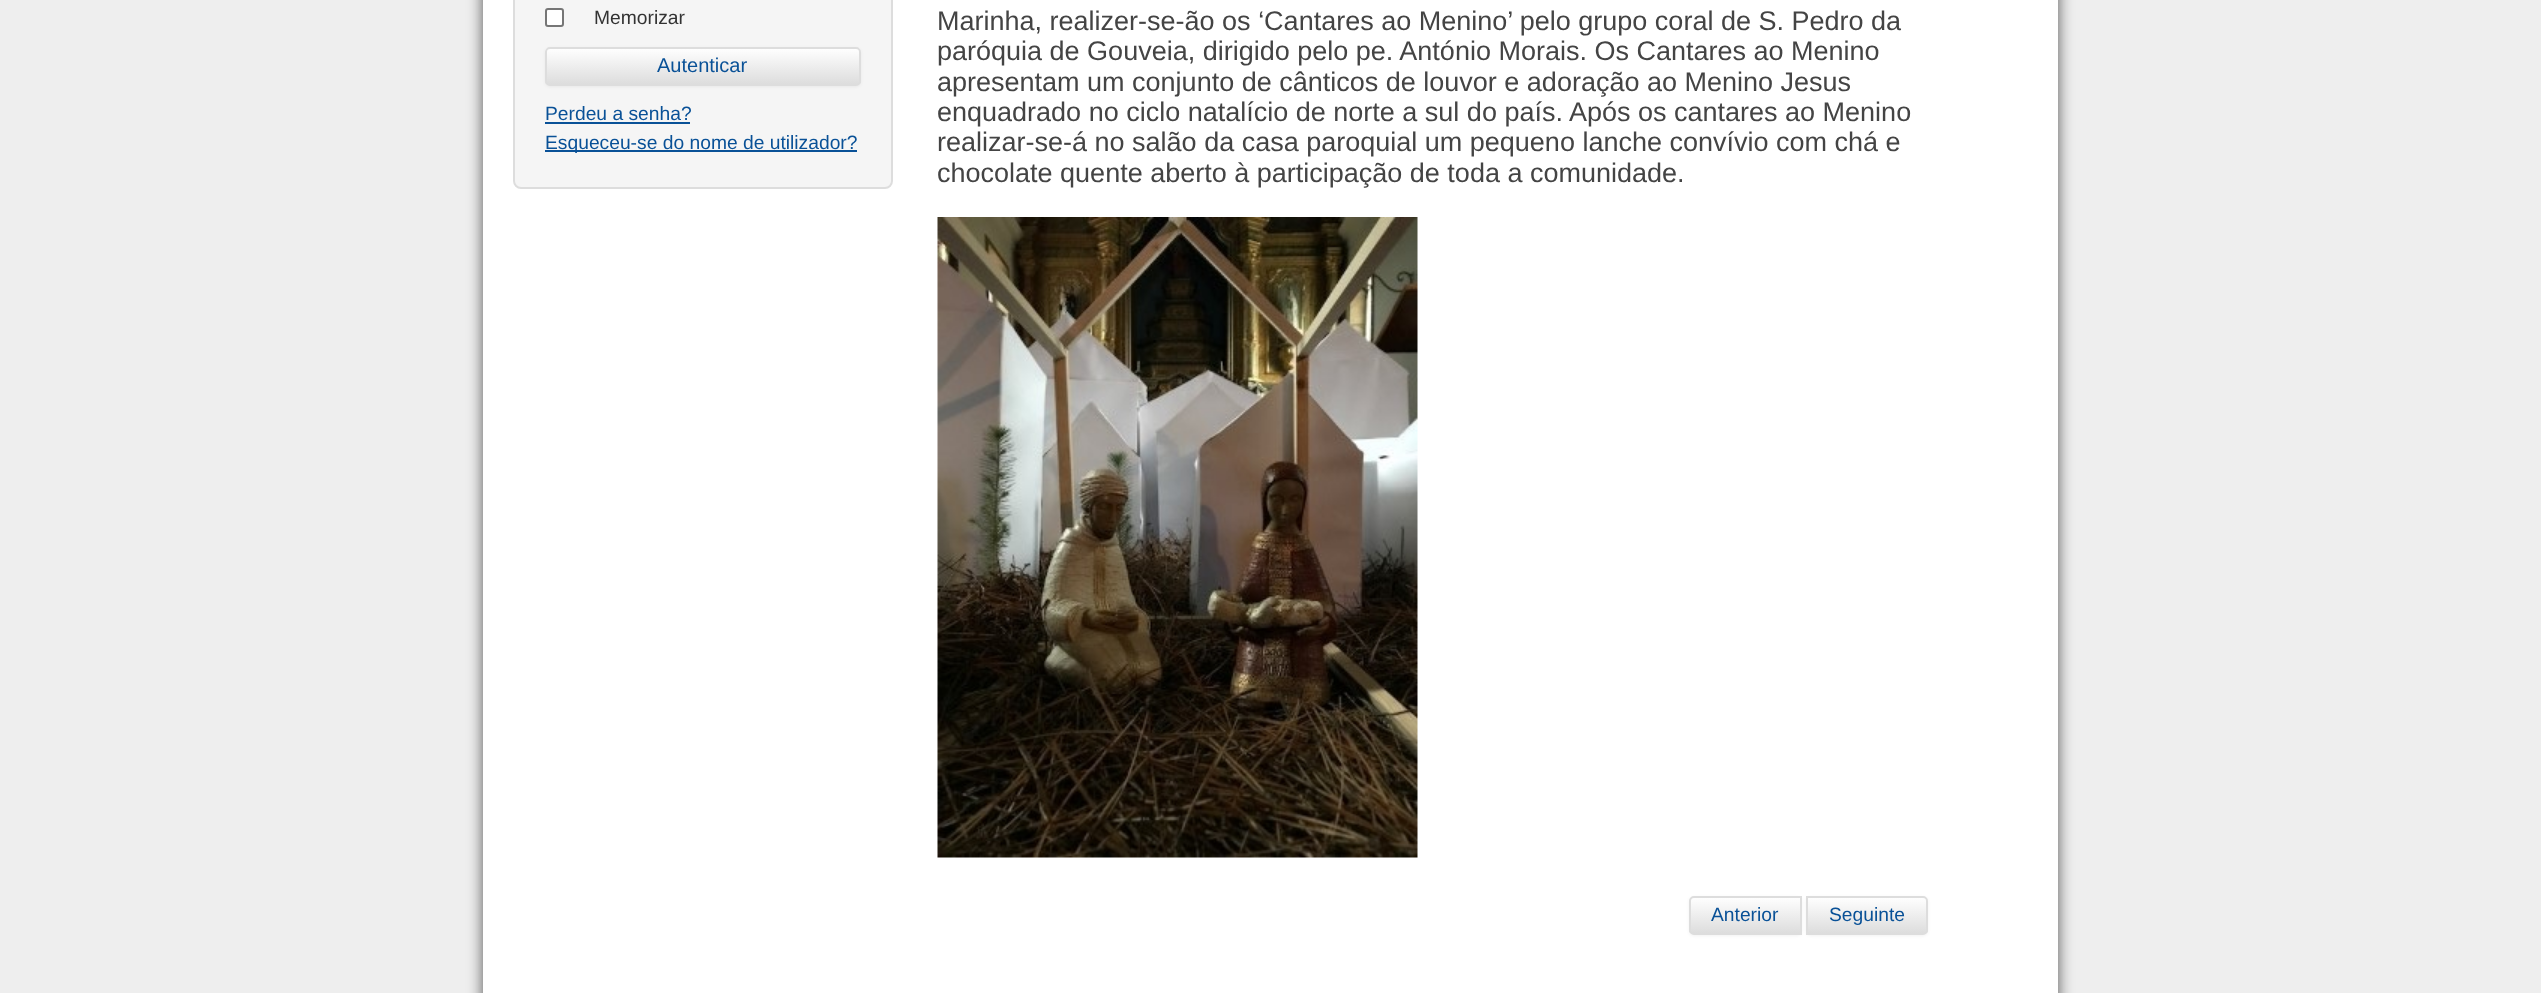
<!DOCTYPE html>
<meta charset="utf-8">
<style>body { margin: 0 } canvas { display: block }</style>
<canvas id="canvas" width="2541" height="993"></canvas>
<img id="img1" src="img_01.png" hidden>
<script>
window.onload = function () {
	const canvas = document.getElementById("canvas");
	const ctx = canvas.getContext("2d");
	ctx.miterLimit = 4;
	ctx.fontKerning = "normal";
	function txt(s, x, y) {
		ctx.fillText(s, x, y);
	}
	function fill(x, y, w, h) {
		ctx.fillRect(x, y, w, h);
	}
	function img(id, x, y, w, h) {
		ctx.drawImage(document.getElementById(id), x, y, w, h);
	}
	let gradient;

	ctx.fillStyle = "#EEEEEE";
	fill(0, 0, 2541, 993);
	ctx.fillStyle = "#555555";
	ctx.filter = "blur(7.5px)";
	ctx.beginPath();
	ctx.rect(483, -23, 1575, 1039);
	ctx.fill();
	ctx.filter = "none";
	ctx.fillStyle = "#FFFFFF";
	fill(483, 0, 1575, 993);
	ctx.fillStyle = "#F5F5F5";
	ctx.beginPath();
	ctx.roundRect(514, -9, 378, 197, 7);
	ctx.fill();
	ctx.strokeStyle = "#DDDDDD";
	ctx.lineWidth = 2;
	ctx.stroke();
	ctx.fillStyle = "#FFFFFF";
	ctx.beginPath();
	ctx.roundRect(546, 9, 17, 17, 2);
	ctx.fill();
	ctx.strokeStyle = "#767676";
	ctx.stroke();
	ctx.fillStyle = "rgba(0, 0, 0, 0.05)";
	ctx.filter = "blur(1.5px)";
	ctx.beginPath();
	ctx.roundRect(545, 48, 316, 39, 5);
	ctx.fill();
	ctx.filter = "none";
	ctx.save();
	ctx.beginPath();
	ctx.roundRect(545, 47, 316, 39, 5);
	ctx.clip();
	gradient = ctx.createLinearGradient(703, 48, 703, 84);
	gradient.addColorStop(0, "#FFFFFF");
	gradient.addColorStop(1, "#DDDDDD");
	ctx.fillStyle = gradient;
	fill(545, 48, 316, 36);
	ctx.restore();
	ctx.beginPath();
	ctx.roundRect(546, 48, 314, 37, 4);
	ctx.strokeStyle = "#DDDDDD";
	ctx.stroke();
	ctx.fillStyle = "#095197";
	fill(545, 122, 145, 2);
	fill(545, 150, 312, 2);
	img("img1", 937, 217, 481, 641);
	ctx.fillStyle = "rgba(0, 0, 0, 0.05)";
	ctx.filter = "blur(1.5px)";
	ctx.beginPath();
	ctx.roundRect(1689, 897, 113, 39, 5);
	ctx.fill();
	ctx.filter = "none";
	ctx.save();
	ctx.beginPath();
	ctx.roundRect(1689, 896, 113, 39, [5, 0, 0, 5]);
	ctx.clip();
	gradient = ctx.createLinearGradient(1745, 897, 1745, 933);
	gradient.addColorStop(0, "#FFFFFF");
	gradient.addColorStop(1, "#DDDDDD");
	ctx.fillStyle = gradient;
	fill(1689, 897, 111, 36);
	ctx.restore();
	ctx.beginPath();
	ctx.roundRect(1690, 897, 111, 37, [4, 0, 0, 4]);
	ctx.stroke();
	ctx.filter = "blur(1.5px)";
	ctx.beginPath();
	ctx.roundRect(1806, 897, 122, 39, 5);
	ctx.fill();
	ctx.filter = "none";
	ctx.save();
	ctx.beginPath();
	ctx.roundRect(1806, 896, 122, 39, [0, 5, 5, 0]);
	ctx.clip();
	gradient = ctx.createLinearGradient(1867, 897, 1867, 933);
	gradient.addColorStop(0, "#FFFFFF");
	gradient.addColorStop(1, "#DDDDDD");
	ctx.fillStyle = gradient;
	fill(1808, 897, 120, 36);
	ctx.restore();
	ctx.beginPath();
	ctx.roundRect(1807, 897, 120, 37, [0, 4, 4, 0]);
	ctx.stroke();
	ctx.font = "19.25px Liberation Sans";
	ctx.fillStyle = "#333333";
	txt("Memorizar", 594, 24);
	ctx.font = "20px Liberation Sans";
	ctx.fillStyle = "#095197";
	txt("Autenticar", 657, 72);
	ctx.font = "19.25px Liberation Sans";
	txt("Perdeu a senha?", 545, 120);
	txt("Esqueceu-se do nome de utilizador?", 545, 149);
	ctx.font = "27px Liberation Sans";
	ctx.fillStyle = "#444444";
	txt("Marinha, realizer-se-ão os ‘Cantares ao Menino’ pelo grupo coral de S. Pedro da", 937, 30);
	txt("paróquia de Gouveia, dirigido pelo pe. António Morais. Os Cantares ao Menino", 937, 60);
	txt("apresentam um conjunto de cânticos de louvor e adoração ao Menino Jesus", 937, 91);
	txt("enquadrado no ciclo natalício de norte a sul do país. Após os cantares ao Menino", 937, 121);
	txt("realizar-se-á no salão da casa paroquial um pequeno lanche convívio com chá e", 937, 151);
	txt("chocolate quente aberto à participação de toda a comunidade.", 937, 182);
	ctx.font = "19.25px Liberation Sans";
	ctx.fillStyle = "#095197";
	txt("Anterior", 1711, 921);
	txt("Seguinte", 1829, 921);
};
</script>
